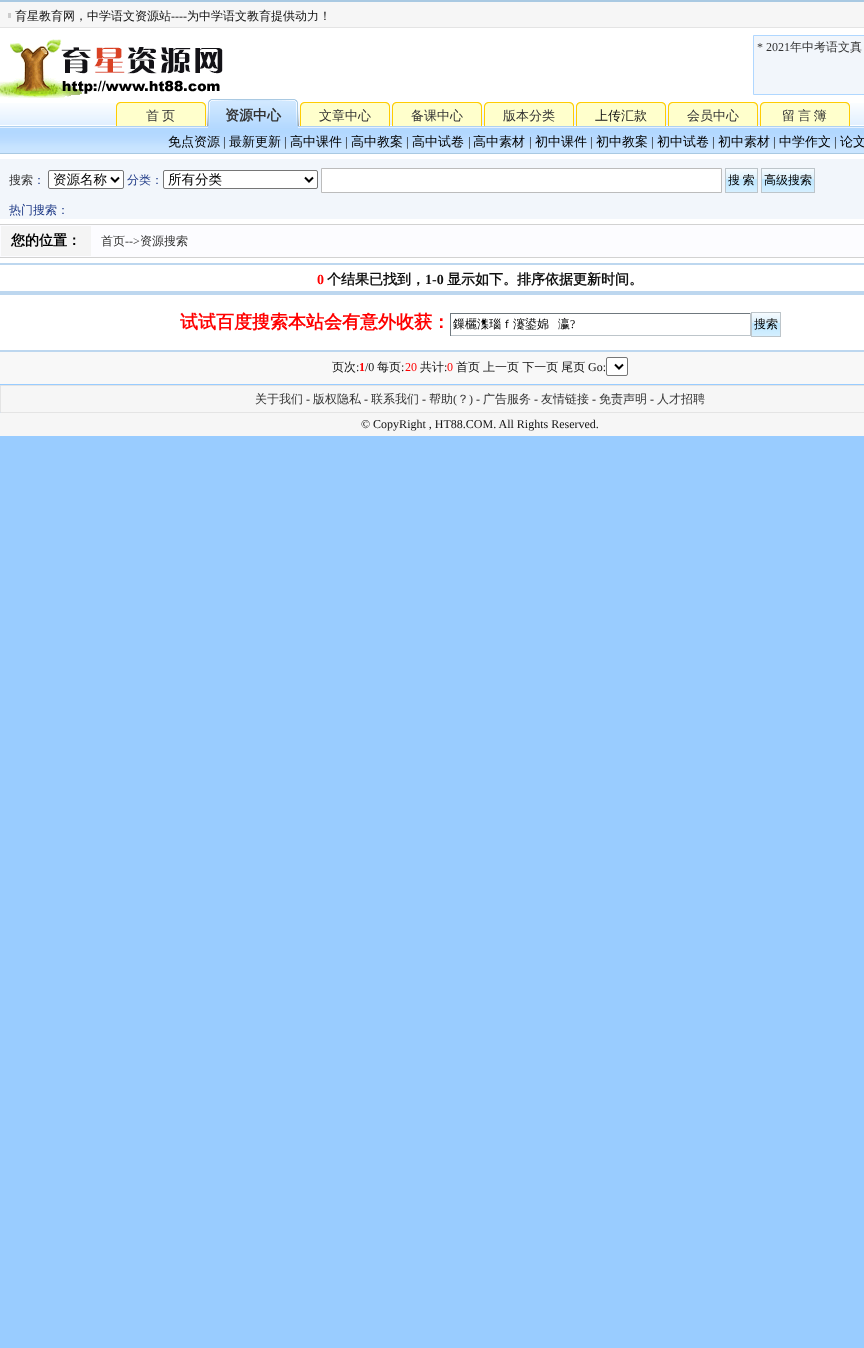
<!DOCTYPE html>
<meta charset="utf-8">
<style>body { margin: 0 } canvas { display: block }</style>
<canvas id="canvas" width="864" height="1348"></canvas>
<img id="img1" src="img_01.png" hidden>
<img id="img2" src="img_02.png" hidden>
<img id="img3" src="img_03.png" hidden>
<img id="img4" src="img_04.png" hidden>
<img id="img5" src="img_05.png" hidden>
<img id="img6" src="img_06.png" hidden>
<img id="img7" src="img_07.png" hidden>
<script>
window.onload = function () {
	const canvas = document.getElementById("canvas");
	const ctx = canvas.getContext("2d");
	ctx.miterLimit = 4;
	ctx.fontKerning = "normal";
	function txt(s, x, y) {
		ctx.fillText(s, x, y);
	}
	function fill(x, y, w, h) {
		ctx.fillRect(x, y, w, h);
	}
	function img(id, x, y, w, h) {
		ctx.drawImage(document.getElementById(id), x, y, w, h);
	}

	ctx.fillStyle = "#99CCFF";
	fill(0, 0, 864, 1348);
	ctx.fillStyle = "#FFFFFF";
	fill(0, 28, 864, 322);
	ctx.fillStyle = "#F6F6F6";
	fill(0, 2, 864, 25);
	ctx.fillStyle = "#A9C9E2";
	fill(0, 0, 864, 2);
	ctx.fillStyle = "#E4E4E4";
	fill(0, 27, 864, 1);
	ctx.fillStyle = "#CCCCCC";
	fill(8, 13, 3, 5);
	img("img1", 0, 39, 223, 59);
	ctx.fillStyle = "#F2F6FB";
	ctx.beginPath();
	ctx.rect(753.5, 35.5, 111, 59);
	ctx.fill();
	ctx.strokeStyle = "#B0D7FF";
	ctx.stroke();
	img("img2", 0, 103, 864, 51);
	img("img3", 116, 102, 90, 24);
	img("img4", 207, 99, 92, 29);
	img("img3", 300, 102, 90, 24);
	img("img3", 392, 102, 90, 24);
	img("img3", 484, 102, 90, 24);
	img("img3", 576, 102, 90, 24);
	img("img3", 668, 102, 90, 24);
	img("img3", 760, 102, 90, 24);
	fill(0, 159, 864, 60);
	ctx.fillStyle = "#FFFFFF";
	ctx.beginPath();
	ctx.roundRect(48.5, 170.5, 75, 18, 1.5);
	ctx.fill();
	ctx.strokeStyle = "#767676";
	ctx.stroke();
	ctx.beginPath();
	ctx.moveTo(111, 177.5);
	ctx.lineTo(115, 181.5);
	ctx.lineTo(119, 177.5);
	ctx.strokeStyle = "#000000";
	ctx.lineWidth = 2;
	ctx.stroke();
	ctx.beginPath();
	ctx.roundRect(163.5, 170.5, 154, 18, 1.5);
	ctx.fill();
	ctx.strokeStyle = "#767676";
	ctx.lineWidth = 1;
	ctx.stroke();
	ctx.beginPath();
	ctx.moveTo(305, 177.5);
	ctx.lineTo(309, 181.5);
	ctx.lineTo(313, 177.5);
	ctx.strokeStyle = "#000000";
	ctx.lineWidth = 2;
	ctx.stroke();
	ctx.beginPath();
	ctx.rect(321.5, 168.5, 400, 24);
	ctx.fill();
	ctx.strokeStyle = "#BCBCBC";
	ctx.lineWidth = 1;
	ctx.stroke();
	img("img5", 726, 169, 31, 23);
	ctx.strokeStyle = "#BDC5CA";
	ctx.strokeRect(725.5, 168.5, 32, 24);
	img("img6", 762, 169, 52, 23);
	ctx.strokeRect(761.5, 168.5, 53, 24);
	ctx.fillStyle = "#FCFCFF";
	fill(0, 225, 864, 32);
	ctx.fillStyle = "#D2D2D2";
	fill(0, 224, 864, 1);
	fill(0, 257, 864, 1);
	ctx.fillStyle = "#F4F4F4";
	fill(1, 226, 90, 30);
	ctx.fillStyle = "#BDD7EF";
	fill(0, 263, 864, 2);
	fill(0, 291, 864, 4);
	fill(0, 350, 864, 2);
	ctx.fillStyle = "#6F787E";
	fill(450, 313, 301, 1);
	ctx.fillStyle = "#BDC5CA";
	fill(750, 313, 1, 23);
	fill(450, 335, 301, 1);
	ctx.fillStyle = "#6F787E";
	fill(450, 313, 1, 23);
	img("img7", 752, 313, 28, 23);
	ctx.strokeRect(751.5, 312.5, 29, 24);
	ctx.fillStyle = "#F8F8F8";
	fill(0, 352, 864, 32);
	ctx.fillStyle = "#FFFFFF";
	ctx.beginPath();
	ctx.roundRect(606.5, 357.5, 21, 18, 1.5);
	ctx.fill();
	ctx.strokeStyle = "#767676";
	ctx.stroke();
	ctx.beginPath();
	ctx.moveTo(615, 364.5);
	ctx.lineTo(619, 368.5);
	ctx.lineTo(623, 364.5);
	ctx.strokeStyle = "#000000";
	ctx.lineWidth = 2;
	ctx.stroke();
	ctx.fillStyle = "#F6F6F6";
	ctx.beginPath();
	ctx.rect(0.5, 385.5, 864, 27);
	ctx.fill();
	ctx.strokeStyle = "#E4E4E4";
	ctx.lineWidth = 1;
	ctx.stroke();
	fill(0, 413, 864, 23);
	ctx.font = "500 12px WenQuanYi Zen Hei";
	ctx.fillStyle = "#101010";
	txt("育星教育网，中学语文资源站", 15, 20);
	ctx.font = "12px Liberation Serif";
	txt("----", 171, 20);
	ctx.font = "500 12px WenQuanYi Zen Hei";
	txt("为中学语文教育提供动力！", 187, 20);
	ctx.font = "12px Liberation Serif";
	ctx.fillStyle = "#333333";
	txt("* 2021", 757, 51);
	ctx.font = "500 12px WenQuanYi Zen Hei";
	txt("年中考语文真", 790, 51);
	ctx.wordSpacing = "-1px";
	ctx.font = "500 13px WenQuanYi Zen Hei";
	txt("首 页", 146, 120);
	ctx.wordSpacing = "0px";
	ctx.font = "bold 14px WenQuanYi Zen Hei";
	txt("资源中心", 225, 120);
	ctx.font = "500 13px WenQuanYi Zen Hei";
	txt("文章中心", 319, 120);
	txt("备课中心", 411, 120);
	txt("版本分类", 503, 120);
	ctx.fillStyle = "#101010";
	txt("上传汇款", 595, 120);
	ctx.fillStyle = "#333333";
	txt("会员中心", 687, 120);
	ctx.wordSpacing = "-1px";
	txt("留 言 簿", 782, 120);
	ctx.wordSpacing = "0px";
	ctx.fillStyle = "#000000";
	txt("免点资源", 168, 146);
	ctx.font = "13px Liberation Serif";
	ctx.fillStyle = "#101010";
	txt("|", 223, 146);
	ctx.font = "500 13px WenQuanYi Zen Hei";
	ctx.fillStyle = "#000000";
	txt("最新更新", 229, 146);
	ctx.font = "13px Liberation Serif";
	ctx.fillStyle = "#101010";
	txt("|", 284, 146);
	ctx.font = "500 13px WenQuanYi Zen Hei";
	ctx.fillStyle = "#000000";
	txt("高中课件", 290, 146);
	ctx.font = "13px Liberation Serif";
	ctx.fillStyle = "#101010";
	txt("|", 345, 146);
	ctx.font = "500 13px WenQuanYi Zen Hei";
	ctx.fillStyle = "#000000";
	txt("高中教案", 351, 146);
	ctx.font = "13px Liberation Serif";
	ctx.fillStyle = "#101010";
	txt("|", 406, 146);
	ctx.font = "500 13px WenQuanYi Zen Hei";
	ctx.fillStyle = "#000000";
	txt("高中试卷", 412, 146);
	ctx.font = "13px Liberation Serif";
	ctx.fillStyle = "#101010";
	txt("|", 468, 146);
	ctx.font = "500 13px WenQuanYi Zen Hei";
	ctx.fillStyle = "#000000";
	txt("高中素材", 473, 146);
	ctx.font = "13px Liberation Serif";
	ctx.fillStyle = "#101010";
	txt("|", 529, 146);
	ctx.font = "500 13px WenQuanYi Zen Hei";
	ctx.fillStyle = "#000000";
	txt("初中课件", 535, 146);
	ctx.font = "13px Liberation Serif";
	ctx.fillStyle = "#101010";
	txt("|", 590, 146);
	ctx.font = "500 13px WenQuanYi Zen Hei";
	ctx.fillStyle = "#000000";
	txt("初中教案", 596, 146);
	ctx.font = "13px Liberation Serif";
	ctx.fillStyle = "#101010";
	txt("|", 651, 146);
	ctx.font = "500 13px WenQuanYi Zen Hei";
	ctx.fillStyle = "#000000";
	txt("初中试卷", 657, 146);
	ctx.font = "13px Liberation Serif";
	ctx.fillStyle = "#101010";
	txt("|", 712, 146);
	ctx.font = "500 13px WenQuanYi Zen Hei";
	ctx.fillStyle = "#000000";
	txt("初中素材", 718, 146);
	ctx.font = "13px Liberation Serif";
	ctx.fillStyle = "#101010";
	txt("|", 773, 146);
	ctx.font = "500 13px WenQuanYi Zen Hei";
	ctx.fillStyle = "#000000";
	txt("中学作文", 779, 146);
	ctx.font = "13px Liberation Serif";
	ctx.fillStyle = "#101010";
	txt("|", 834, 146);
	ctx.font = "500 13px WenQuanYi Zen Hei";
	ctx.fillStyle = "#000000";
	txt("论文", 840, 146);
	ctx.font = "500 12px WenQuanYi Zen Hei";
	ctx.fillStyle = "#333333";
	txt("搜索", 9, 184);
	ctx.fillStyle = "#1F3A87";
	txt("：", 33, 184);
	ctx.font = "500 13.5px WenQuanYi Zen Hei";
	ctx.fillStyle = "#000000";
	txt("资源名称", 53, 184);
	ctx.font = "500 12px WenQuanYi Zen Hei";
	ctx.fillStyle = "#1F3A87";
	txt("分类：", 127, 184);
	ctx.font = "500 13.5px WenQuanYi Zen Hei";
	ctx.fillStyle = "#000000";
	txt("所有分类", 168, 184);
	ctx.wordSpacing = "-1px";
	ctx.font = "500 12px WenQuanYi Zen Hei";
	txt("搜 索", 728, 184);
	ctx.wordSpacing = "0px";
	txt("高级搜索", 764, 184);
	ctx.fillStyle = "#1F3A87";
	txt("热门搜索：", 9, 214);
	ctx.font = "bold 14px WenQuanYi Zen Hei";
	ctx.fillStyle = "#000000";
	txt("您的位置：", 11, 245);
	ctx.font = "500 12px WenQuanYi Zen Hei";
	ctx.fillStyle = "#333333";
	txt("首页", 101, 245);
	ctx.font = "12px Liberation Serif";
	txt("-->", 125, 245);
	ctx.font = "500 12px WenQuanYi Zen Hei";
	txt("资源搜索", 140, 245);
	ctx.font = "bold 14px Liberation Serif";
	ctx.fillStyle = "#FF0000";
	txt("0", 317, 284);
	ctx.font = "bold 14px WenQuanYi Zen Hei";
	ctx.fillStyle = "#101010";
	txt("个结果已找到，", 327, 284);
	ctx.font = "bold 14px Liberation Serif";
	txt("1-0", 425, 284);
	ctx.font = "bold 14px WenQuanYi Zen Hei";
	txt("显示如下。排序依据更新时间。", 447, 284);
	ctx.font = "bold 18px WenQuanYi Zen Hei";
	ctx.fillStyle = "#FF0000";
	txt("试试百度搜索本站会有意外收获：", 180, 328);
	ctx.font = "500 12px WenQuanYi Zen Hei";
	ctx.fillStyle = "#000000";
	txt("鏁欐潗瑙ｆ瀽鍙婂", 453, 328);
	txt("瀛", 558, 328);
	ctx.font = "12px Liberation Serif";
	txt("?", 570, 328);
	ctx.font = "500 12px WenQuanYi Zen Hei";
	txt("搜索", 754, 328);
	ctx.fillStyle = "#101010";
	txt("页次", 332, 371);
	ctx.font = "12px Liberation Serif";
	txt(":", 356, 371);
	ctx.font = "bold 12px Liberation Serif";
	ctx.fillStyle = "#FF0000";
	txt("1", 359, 371);
	ctx.font = "12px Liberation Serif";
	ctx.fillStyle = "#101010";
	txt("/0", 365, 371);
	ctx.font = "500 12px WenQuanYi Zen Hei";
	txt("每页", 377, 371);
	ctx.font = "12px Liberation Serif";
	txt(":", 401, 371);
	ctx.fillStyle = "#FF0000";
	txt("20", 405, 371);
	ctx.font = "500 12px WenQuanYi Zen Hei";
	ctx.fillStyle = "#101010";
	txt("共计", 420, 371);
	ctx.font = "12px Liberation Serif";
	txt(":", 444, 371);
	ctx.fillStyle = "#FF0000";
	txt("0", 447, 371);
	ctx.wordSpacing = "-0.5px";
	ctx.font = "500 12px WenQuanYi Zen Hei";
	ctx.fillStyle = "#101010";
	txt("首页 上一页 下一页 尾页", 456, 371);
	ctx.wordSpacing = "0px";
	ctx.font = "12px Liberation Serif";
	txt("Go:", 588, 371);
	ctx.font = "500 12px WenQuanYi Zen Hei";
	ctx.fillStyle = "#333333";
	txt("关于我们", 255, 403);
	ctx.font = "12px Liberation Serif";
	ctx.fillStyle = "#101010";
	txt("-", 306, 403);
	ctx.font = "500 12px WenQuanYi Zen Hei";
	ctx.fillStyle = "#333333";
	txt("版权隐私", 313, 403);
	ctx.font = "12px Liberation Serif";
	ctx.fillStyle = "#101010";
	txt("-", 364, 403);
	ctx.font = "500 12px WenQuanYi Zen Hei";
	ctx.fillStyle = "#333333";
	txt("联系我们", 371, 403);
	ctx.font = "12px Liberation Serif";
	ctx.fillStyle = "#101010";
	txt("-", 422, 403);
	ctx.font = "500 12px WenQuanYi Zen Hei";
	ctx.fillStyle = "#333333";
	txt("帮助", 429, 403);
	ctx.font = "12px Liberation Serif";
	txt("(", 453, 403);
	ctx.font = "500 12px WenQuanYi Zen Hei";
	txt("？", 457, 403);
	ctx.font = "12px Liberation Serif";
	txt(")", 469, 403);
	ctx.fillStyle = "#101010";
	txt("-", 476, 403);
	ctx.font = "500 12px WenQuanYi Zen Hei";
	ctx.fillStyle = "#333333";
	txt("广告服务", 483, 403);
	ctx.font = "12px Liberation Serif";
	ctx.fillStyle = "#101010";
	txt("-", 534, 403);
	ctx.font = "500 12px WenQuanYi Zen Hei";
	ctx.fillStyle = "#333333";
	txt("友情链接", 541, 403);
	ctx.font = "12px Liberation Serif";
	ctx.fillStyle = "#101010";
	txt("-", 592, 403);
	ctx.font = "500 12px WenQuanYi Zen Hei";
	ctx.fillStyle = "#333333";
	txt("免责声明", 599, 403);
	ctx.font = "12px Liberation Serif";
	ctx.fillStyle = "#101010";
	txt("-", 650, 403);
	ctx.font = "500 12px WenQuanYi Zen Hei";
	ctx.fillStyle = "#333333";
	txt("人才招聘", 657, 403);
	ctx.font = "12px Liberation Serif";
	ctx.fillStyle = "#101010";
	txt("© CopyRight , HT88.COM. All Rights Reserved.", 361, 428);
};
</script>
